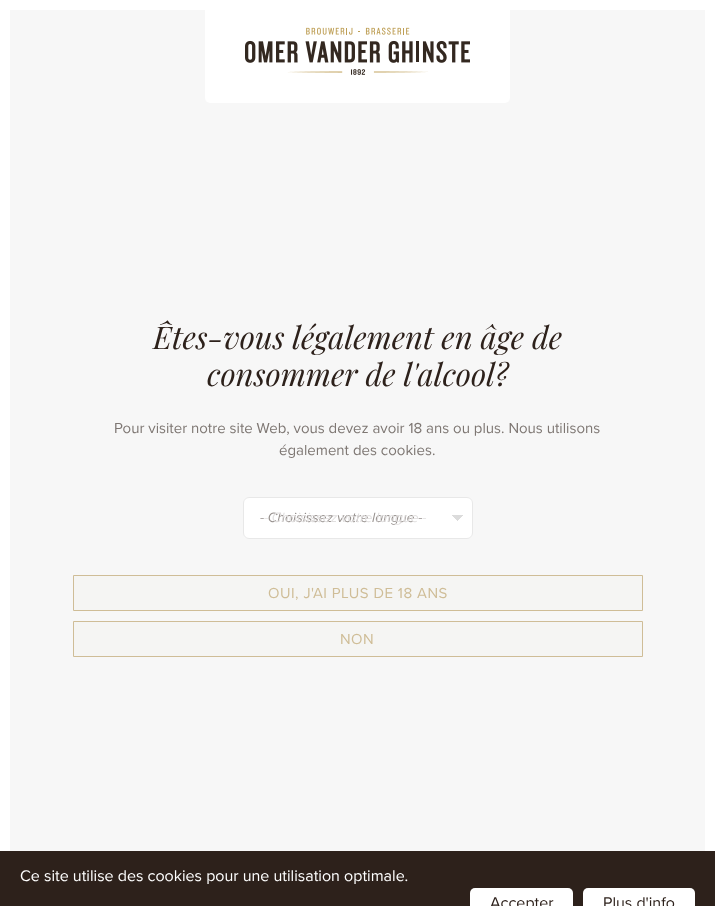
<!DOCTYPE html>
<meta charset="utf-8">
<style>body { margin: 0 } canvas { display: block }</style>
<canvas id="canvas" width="715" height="906"></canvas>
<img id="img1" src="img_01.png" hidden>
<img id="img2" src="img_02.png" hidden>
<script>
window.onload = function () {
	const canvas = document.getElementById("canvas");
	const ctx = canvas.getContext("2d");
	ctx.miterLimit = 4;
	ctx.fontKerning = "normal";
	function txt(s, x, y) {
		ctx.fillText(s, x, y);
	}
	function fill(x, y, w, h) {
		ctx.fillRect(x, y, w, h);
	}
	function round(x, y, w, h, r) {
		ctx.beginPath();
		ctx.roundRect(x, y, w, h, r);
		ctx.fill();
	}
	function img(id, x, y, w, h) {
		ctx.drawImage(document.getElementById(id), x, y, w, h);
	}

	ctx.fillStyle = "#F7F7F7";
	fill(0, 0, 715, 906);
	ctx.strokeStyle = "#FFFFFF";
	ctx.lineWidth = 10;
	ctx.strokeRect(5, 5, 705, 896);
	ctx.fillStyle = "rgba(255, 255, 255, 0.9)";
	ctx.beginPath();
	ctx.roundRect(205, 10, 305, 93, [0, 0, 5, 5]);
	ctx.fill();
	img("img1", 245, 27, 225, 48);
	ctx.fillStyle = "#FFFFFF";
	round(243, 497, 230, 42, 6);
	img("img2", 452, 515, 11, 6);
	ctx.beginPath();
	ctx.roundRect(243.5, 497.5, 229, 41, 5.5);
	ctx.strokeStyle = "#E8E8E8";
	ctx.lineWidth = 1;
	ctx.stroke();
	ctx.fillStyle = "#F5F5F3";
	ctx.beginPath();
	ctx.rect(73.5, 575.5, 569, 35);
	ctx.fill();
	ctx.strokeStyle = "#CFBD97";
	ctx.stroke();
	ctx.beginPath();
	ctx.rect(73.5, 621.5, 569, 35);
	ctx.fill();
	ctx.stroke();
	ctx.fillStyle = "#2D211B";
	fill(0, 851, 715, 55);
	ctx.fillStyle = "#FFFFFF";
	round(470, 888, 103, 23, 5);
	round(583, 888, 112, 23, 5);
	ctx.font = "italic 31.1px Playfair Display";
	ctx.fillStyle = "#2D211B";
	txt("Êtes-vous légalement en âge de", 153, 349);
	txt("consommer de l'alcool?", 207, 386);
	ctx.font = "15px Proxima Nova";
	ctx.fillStyle = "#7E7773";
	txt("Pour visiter notre site Web, vous devez avoir 18 ans ou plus. Nous utilisons", 114, 433);
	txt("également des cookies.", 279, 455);
	ctx.font = "italic 14px Proxima Nova";
	ctx.fillStyle = "#96908D";
	txt("- Choisissez votre langue -", 260, 522);
	ctx.fillStyle = "#E1DFDF";
	txt("- Choisissez votre langue -", 264, 522);
	ctx.letterSpacing = "0.5px";
	ctx.font = "15px Proxima Nova";
	ctx.fillStyle = "#CFBD97";
	txt("OUI, J'AI PLUS DE 18 ANS", 268, 598);
	txt("NON", 340, 644);
	ctx.letterSpacing = "0px";
	ctx.font = "16px Proxima Nova";
	ctx.fillStyle = "#FFFFFF";
	txt("Ce site utilise des cookies pour une utilisation optimale.", 20, 881);
	ctx.fillStyle = "#2D211B";
	txt("Accepter", 490, 908);
	txt("Plus d'info", 603, 908);
};
</script>
